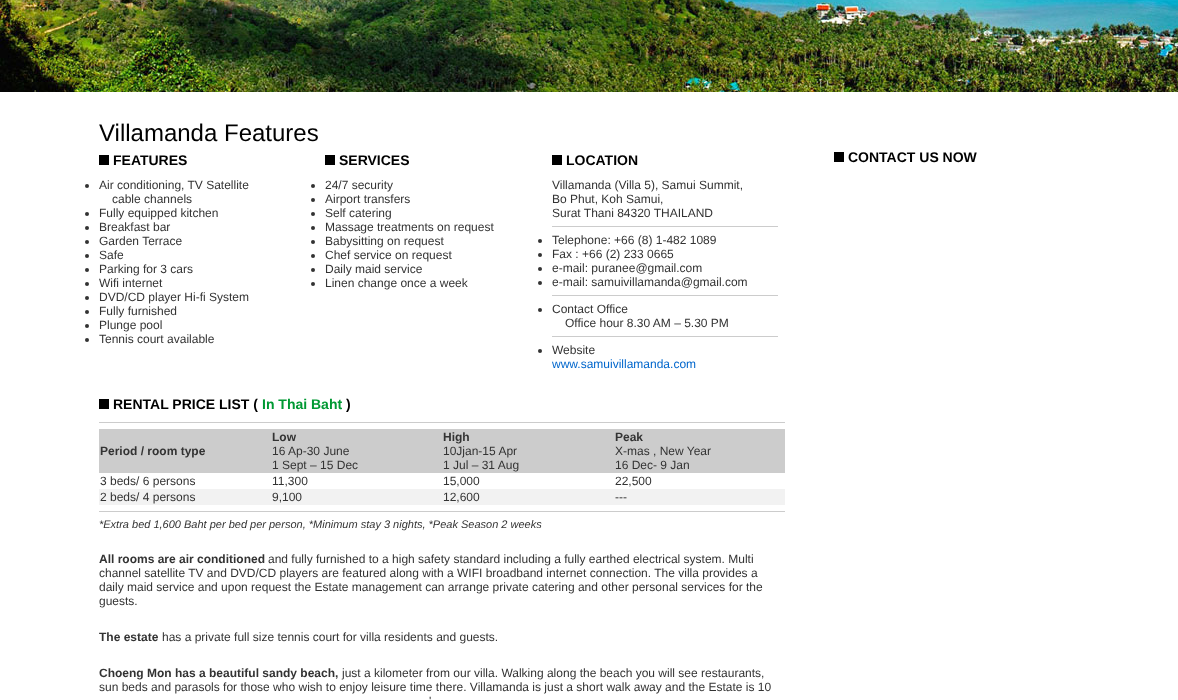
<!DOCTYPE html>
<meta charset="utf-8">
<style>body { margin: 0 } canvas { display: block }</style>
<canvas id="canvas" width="1178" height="700"></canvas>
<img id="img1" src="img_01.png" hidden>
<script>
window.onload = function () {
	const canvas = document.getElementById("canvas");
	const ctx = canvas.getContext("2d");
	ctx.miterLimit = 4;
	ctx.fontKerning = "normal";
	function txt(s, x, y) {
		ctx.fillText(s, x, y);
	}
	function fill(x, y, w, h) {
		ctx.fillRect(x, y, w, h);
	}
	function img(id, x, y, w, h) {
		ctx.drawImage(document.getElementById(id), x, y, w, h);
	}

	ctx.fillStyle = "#FFFFFF";
	fill(0, 0, 1178, 700);
	img("img1", 0, 0, 1178, 92);
	ctx.fillStyle = "#000000";
	fill(99, 155, 10, 10);
	ctx.fillStyle = "#333333";
	ctx.beginPath();
	ctx.arc(87, 186, 2, 0, Math.PI * 2);
	ctx.fill();
	ctx.beginPath();
	ctx.arc(87, 214, 2, 0, Math.PI * 2);
	ctx.fill();
	ctx.beginPath();
	ctx.arc(87, 228, 2, 0, Math.PI * 2);
	ctx.fill();
	ctx.beginPath();
	ctx.arc(87, 242, 2, 0, Math.PI * 2);
	ctx.fill();
	ctx.beginPath();
	ctx.arc(87, 256, 2, 0, Math.PI * 2);
	ctx.fill();
	ctx.beginPath();
	ctx.arc(87, 270, 2, 0, Math.PI * 2);
	ctx.fill();
	ctx.beginPath();
	ctx.arc(87, 284, 2, 0, Math.PI * 2);
	ctx.fill();
	ctx.beginPath();
	ctx.arc(87, 298, 2, 0, Math.PI * 2);
	ctx.fill();
	ctx.beginPath();
	ctx.arc(87, 312, 2, 0, Math.PI * 2);
	ctx.fill();
	ctx.beginPath();
	ctx.arc(87, 326, 2, 0, Math.PI * 2);
	ctx.fill();
	ctx.beginPath();
	ctx.arc(87, 340, 2, 0, Math.PI * 2);
	ctx.fill();
	ctx.fillStyle = "#000000";
	fill(325, 155, 10, 10);
	ctx.fillStyle = "#333333";
	ctx.beginPath();
	ctx.arc(313, 186, 2, 0, Math.PI * 2);
	ctx.fill();
	ctx.beginPath();
	ctx.arc(313, 200, 2, 0, Math.PI * 2);
	ctx.fill();
	ctx.beginPath();
	ctx.arc(313, 214, 2, 0, Math.PI * 2);
	ctx.fill();
	ctx.beginPath();
	ctx.arc(313, 228, 2, 0, Math.PI * 2);
	ctx.fill();
	ctx.beginPath();
	ctx.arc(313, 242, 2, 0, Math.PI * 2);
	ctx.fill();
	ctx.beginPath();
	ctx.arc(313, 256, 2, 0, Math.PI * 2);
	ctx.fill();
	ctx.beginPath();
	ctx.arc(313, 270, 2, 0, Math.PI * 2);
	ctx.fill();
	ctx.beginPath();
	ctx.arc(313, 284, 2, 0, Math.PI * 2);
	ctx.fill();
	ctx.fillStyle = "#000000";
	fill(552, 155, 10, 10);
	ctx.fillStyle = "#CCCCCC";
	fill(552, 226, 226, 1);
	ctx.fillStyle = "#333333";
	ctx.beginPath();
	ctx.arc(540, 241, 2, 0, Math.PI * 2);
	ctx.fill();
	ctx.beginPath();
	ctx.arc(540, 255, 2, 0, Math.PI * 2);
	ctx.fill();
	ctx.beginPath();
	ctx.arc(540, 269, 2, 0, Math.PI * 2);
	ctx.fill();
	ctx.beginPath();
	ctx.arc(540, 283, 2, 0, Math.PI * 2);
	ctx.fill();
	ctx.fillStyle = "#CCCCCC";
	fill(552, 295, 226, 1);
	ctx.fillStyle = "#333333";
	ctx.beginPath();
	ctx.arc(540, 310, 2, 0, Math.PI * 2);
	ctx.fill();
	ctx.fillStyle = "#CCCCCC";
	fill(552, 336, 226, 1);
	ctx.fillStyle = "#333333";
	ctx.beginPath();
	ctx.arc(540, 351, 2, 0, Math.PI * 2);
	ctx.fill();
	ctx.fillStyle = "#000000";
	fill(99, 399, 10, 10);
	ctx.fillStyle = "#CCCCCC";
	fill(99, 422, 686, 1);
	fill(99, 429, 686, 44);
	ctx.fillStyle = "#F2F2F2";
	fill(99, 489, 686, 16);
	ctx.fillStyle = "#CCCCCC";
	fill(99, 511, 686, 1);
	ctx.fillStyle = "#000000";
	fill(834, 152, 10, 10);
	ctx.font = "24px Liberation Sans";
	txt("Villamanda Features", 99, 141);
	ctx.font = "bold 14px Liberation Sans";
	txt("FEATURES", 113, 165);
	ctx.font = "12px Liberation Sans";
	ctx.fillStyle = "#333333";
	txt("Air conditioning, TV Satellite", 99, 189);
	txt("cable channels", 112, 203);
	txt("Fully equipped kitchen", 99, 217);
	txt("Breakfast bar", 99, 231);
	txt("Garden Terrace", 99, 245);
	txt("Safe", 99, 259);
	txt("Parking for 3 cars", 99, 273);
	txt("Wifi internet", 99, 287);
	txt("DVD/CD player Hi-fi System", 99, 301);
	txt("Fully furnished", 99, 315);
	txt("Plunge pool", 99, 329);
	txt("Tennis court available", 99, 343);
	ctx.font = "bold 14px Liberation Sans";
	ctx.fillStyle = "#000000";
	txt("SERVICES", 339, 165);
	ctx.font = "12px Liberation Sans";
	ctx.fillStyle = "#333333";
	txt("24/7 security", 325, 189);
	txt("Airport transfers", 325, 203);
	txt("Self catering", 325, 217);
	txt("Massage treatments on request", 325, 231);
	txt("Babysitting on request", 325, 245);
	txt("Chef service on request", 325, 259);
	txt("Daily maid service", 325, 273);
	txt("Linen change once a week", 325, 287);
	ctx.font = "bold 14px Liberation Sans";
	ctx.fillStyle = "#000000";
	txt("LOCATION", 566, 165);
	ctx.font = "12px Liberation Sans";
	ctx.fillStyle = "#333333";
	txt("Villamanda (Villa 5), Samui Summit,", 552, 189);
	txt("Bo Phut, Koh Samui,", 552, 203);
	txt("Surat Thani 84320 THAILAND", 552, 217);
	txt("Telephone: +66 (8) 1-482 1089", 552, 244);
	txt("Fax : +66 (2) 233 0665", 552, 258);
	txt("e-mail: puranee@gmail.com", 552, 272);
	txt("e-mail: samuivillamanda@gmail.com", 552, 286);
	txt("Contact Office", 552, 313);
	txt("Office hour 8.30 AM – 5.30 PM", 565, 327);
	txt("Website", 552, 354);
	ctx.fillStyle = "#0066CC";
	txt("www.samuivillamanda.com", 552, 368);
	ctx.font = "bold 14px Liberation Sans";
	ctx.fillStyle = "#000000";
	txt("RENTAL PRICE LIST (", 113, 409);
	ctx.fillStyle = "#009933";
	txt("In Thai Baht", 262, 409);
	ctx.fillStyle = "#000000";
	txt(")", 346, 409);
	ctx.font = "bold 12px Liberation Sans";
	ctx.fillStyle = "#333333";
	txt("Period / room type", 100, 455);
	txt("Low", 272, 441);
	ctx.font = "12px Liberation Sans";
	txt("16 Ap-30 June", 272, 455);
	txt("1 Sept – 15 Dec", 272, 469);
	ctx.font = "bold 12px Liberation Sans";
	txt("High", 443, 441);
	ctx.font = "12px Liberation Sans";
	txt("10Jjan-15 Apr", 443, 455);
	txt("1 Jul – 31 Aug", 443, 469);
	ctx.font = "bold 12px Liberation Sans";
	txt("Peak", 615, 441);
	ctx.font = "12px Liberation Sans";
	txt("X-mas , New Year", 615, 455);
	txt("16 Dec- 9 Jan", 615, 469);
	txt("3 beds/ 6 persons", 100, 485);
	txt("11,300", 272, 485);
	txt("15,000", 443, 485);
	txt("22,500", 615, 485);
	txt("2 beds/ 4 persons", 100, 501);
	txt("9,100", 272, 501);
	txt("12,600", 443, 501);
	txt("---", 615, 501);
	ctx.font = "italic 11px Liberation Sans";
	txt("*Extra bed 1,600 Baht per bed per person, *Minimum stay 3 nights, *Peak Season 2 weeks", 99, 528);
	ctx.font = "bold 12px Liberation Sans";
	txt("All rooms are air conditioned", 99, 563);
	ctx.font = "12px Liberation Sans";
	txt("and fully furnished to a high safety standard including a fully earthed electrical system. Multi", 268, 563);
	txt("channel satellite TV and DVD/CD players are featured along with a WIFI broadband internet connection. The villa provides a", 99, 577);
	txt("daily maid service and upon request the Estate management can arrange private catering and other personal services for the", 99, 591);
	txt("guests.", 99, 605);
	ctx.font = "bold 12px Liberation Sans";
	txt("The estate", 99, 641);
	ctx.font = "12px Liberation Sans";
	txt("has a private full size tennis court for villa residents and guests.", 162, 641);
	ctx.font = "bold 12px Liberation Sans";
	txt("Choeng Mon has a beautiful sandy beach,", 99, 677);
	ctx.font = "12px Liberation Sans";
	txt("just a kilometer from our villa. Walking along the beach you will see restaurants,", 342, 677);
	txt("sun beds and parasols for those who wish to enjoy leisure time there. Villamanda is just a short walk away and the Estate is 10", 99, 691);
	txt("'", 429, 705);
	ctx.font = "bold 14px Liberation Sans";
	ctx.fillStyle = "#000000";
	txt("CONTACT US NOW", 848, 162);
};
</script>
